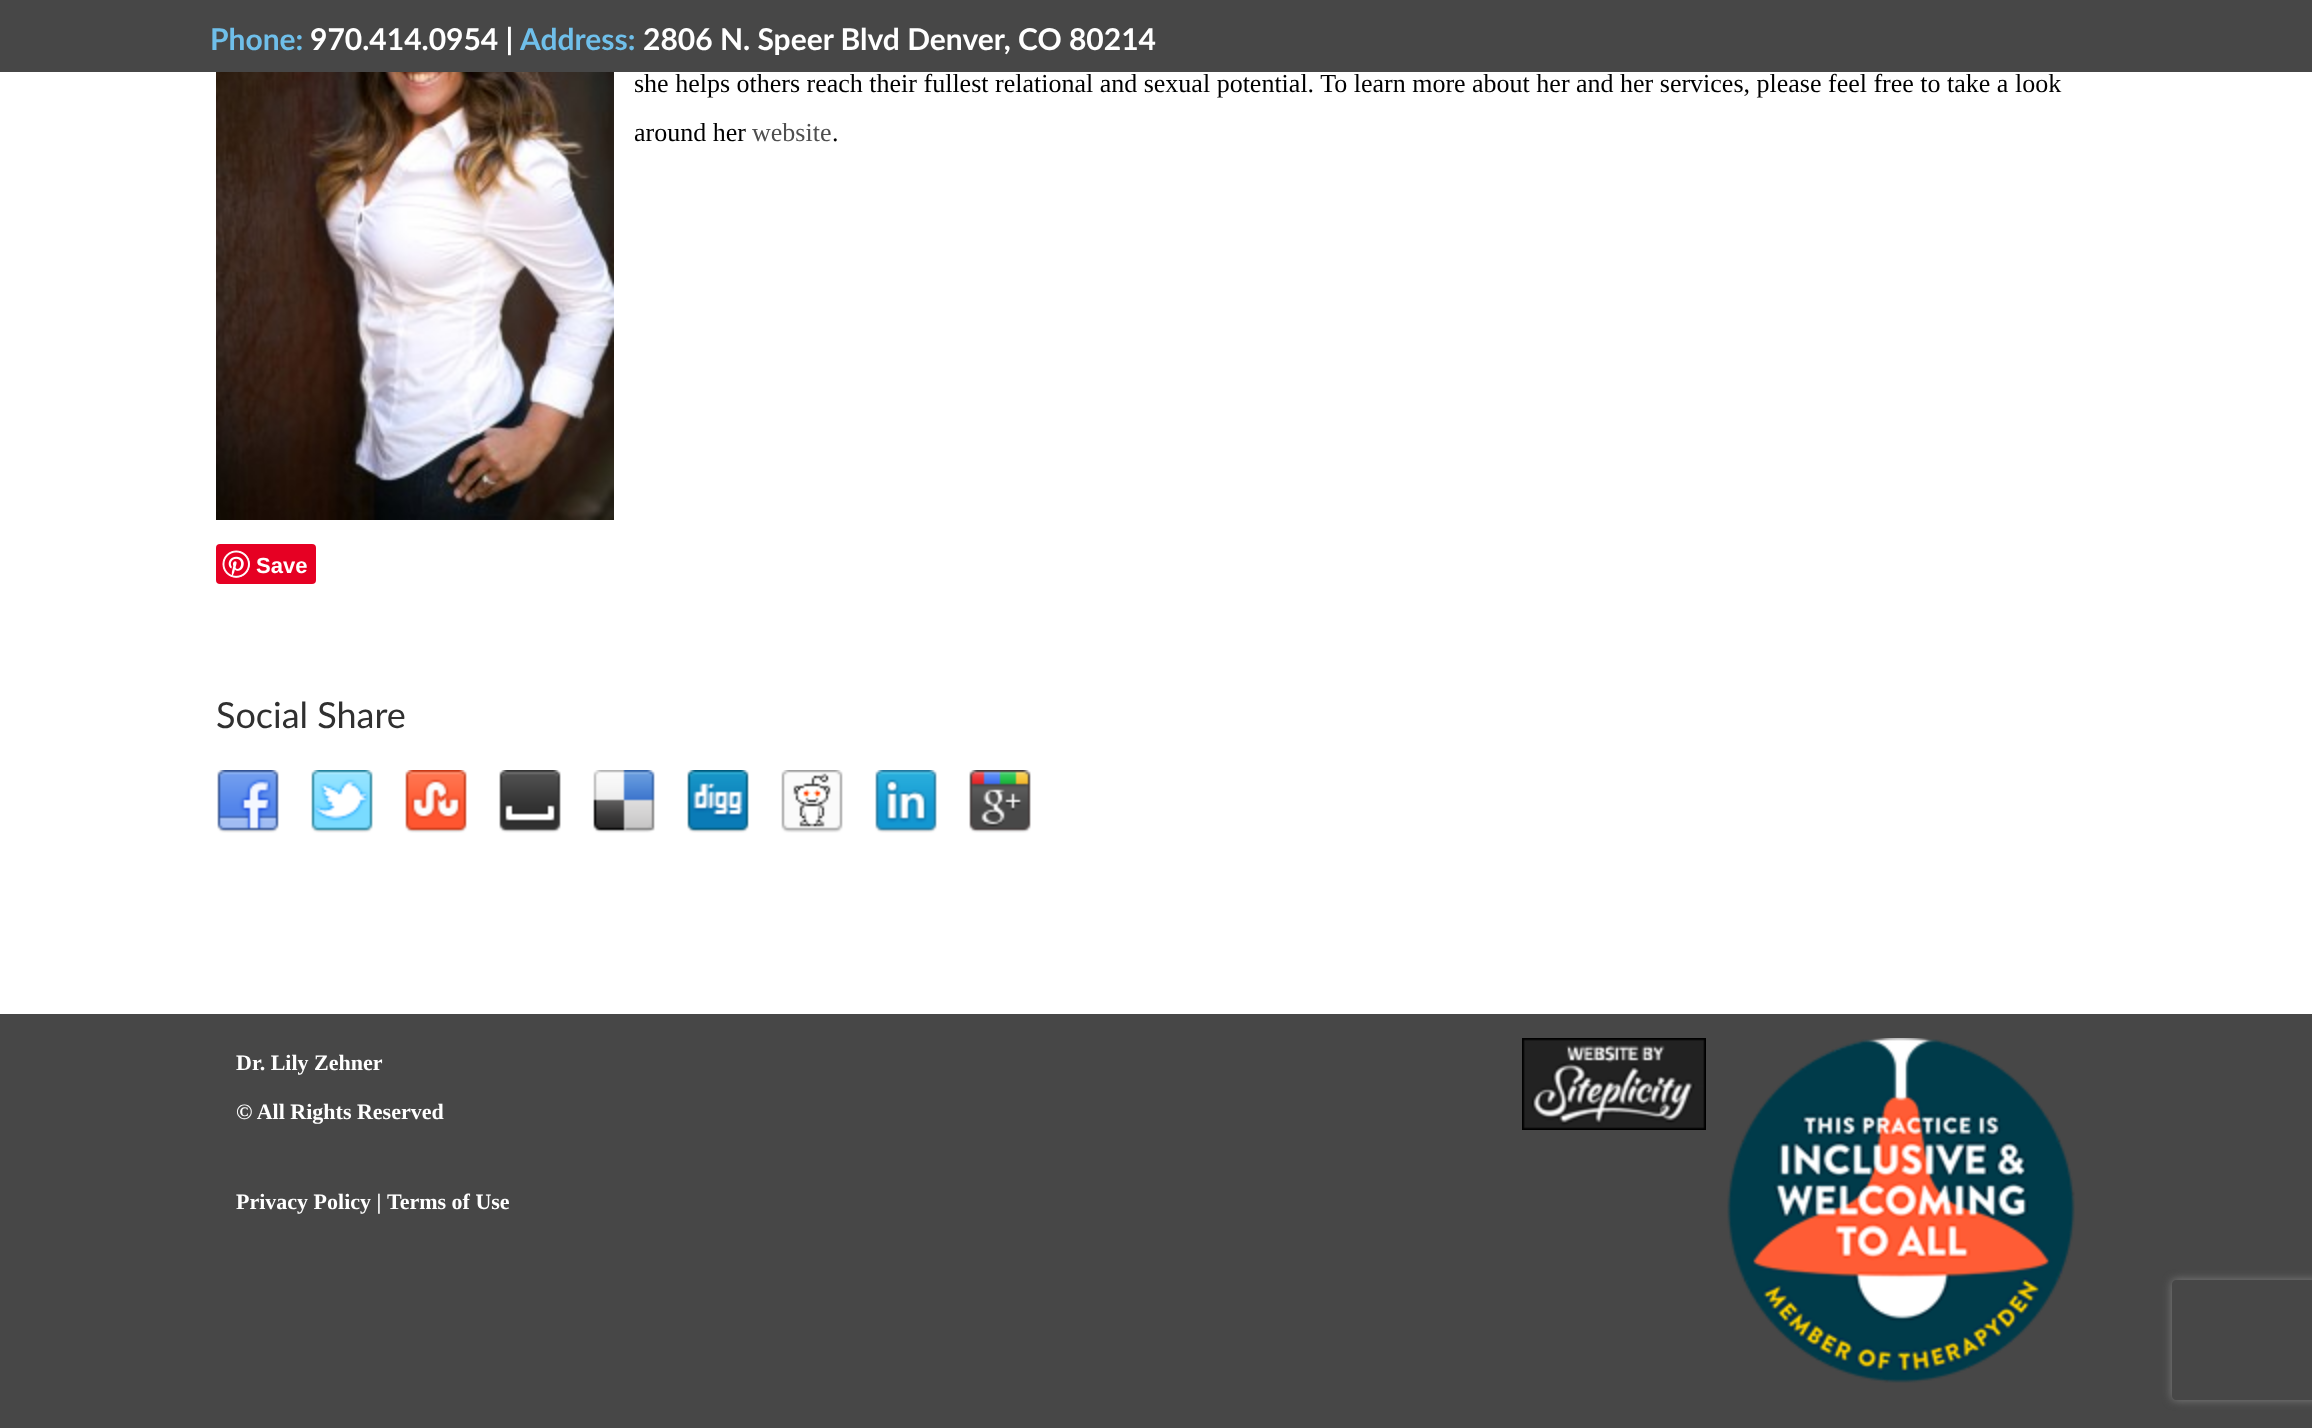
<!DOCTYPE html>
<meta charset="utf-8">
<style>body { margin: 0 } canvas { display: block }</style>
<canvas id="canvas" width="2312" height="1428"></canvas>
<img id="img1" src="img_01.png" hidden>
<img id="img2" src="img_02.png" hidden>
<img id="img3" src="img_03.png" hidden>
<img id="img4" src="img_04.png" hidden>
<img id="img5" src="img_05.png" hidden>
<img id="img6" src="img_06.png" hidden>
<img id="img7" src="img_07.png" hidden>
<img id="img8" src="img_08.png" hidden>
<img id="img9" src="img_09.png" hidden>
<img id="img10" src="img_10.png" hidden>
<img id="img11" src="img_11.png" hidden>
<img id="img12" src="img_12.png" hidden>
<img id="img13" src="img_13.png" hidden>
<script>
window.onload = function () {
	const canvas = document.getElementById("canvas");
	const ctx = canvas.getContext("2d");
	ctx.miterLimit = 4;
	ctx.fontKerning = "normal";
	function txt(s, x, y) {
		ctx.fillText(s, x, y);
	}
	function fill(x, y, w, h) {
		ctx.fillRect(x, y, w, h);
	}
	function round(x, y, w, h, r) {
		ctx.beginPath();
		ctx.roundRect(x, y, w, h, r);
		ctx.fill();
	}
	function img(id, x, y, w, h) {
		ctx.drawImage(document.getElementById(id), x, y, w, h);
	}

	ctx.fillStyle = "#FFFFFF";
	fill(0, 0, 2312, 1428);
	ctx.fillStyle = "#474747";
	fill(0, 0, 2312, 72);
	img("img1", 216, 72, 398, 448);
	ctx.fillStyle = "#E60023";
	round(216, 544, 100, 40, 4);
	img("img2", 222, 550, 28, 28);
	img("img3", 217, 770, 62, 63);
	img("img4", 311, 770, 62, 63);
	img("img5", 405, 770, 62, 63);
	img("img6", 499, 770, 62, 63);
	img("img7", 593, 770, 62, 63);
	img("img8", 687, 770, 62, 63);
	img("img9", 781, 770, 62, 63);
	img("img10", 875, 770, 62, 63);
	img("img11", 969, 770, 62, 63);
	ctx.fillStyle = "#474747";
	fill(0, 1014, 2312, 414);
	img("img12", 1522, 1038, 184, 92);
	img("img13", 1727, 1038, 348, 345);
	ctx.save();
	ctx.beginPath();
	ctx.moveTo(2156, 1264);
	ctx.lineTo(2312, 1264);
	ctx.lineTo(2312, 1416);
	ctx.lineTo(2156, 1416);
	ctx.closePath();
	ctx.moveTo(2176, 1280);
	ctx.lineTo(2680, 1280);
	ctx.bezierCurveTo(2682, 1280, 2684, 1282, 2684, 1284);
	ctx.lineTo(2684, 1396);
	ctx.bezierCurveTo(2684, 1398, 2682, 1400, 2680, 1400);
	ctx.lineTo(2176, 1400);
	ctx.bezierCurveTo(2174, 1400, 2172, 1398, 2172, 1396);
	ctx.lineTo(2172, 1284);
	ctx.bezierCurveTo(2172, 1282, 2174, 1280, 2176, 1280);
	ctx.closePath();
	ctx.clip("evenodd");
	ctx.fillStyle = "#808080";
	ctx.filter = "blur(5px)";
	ctx.beginPath();
	ctx.roundRect(2172, 1280, 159, 120, 4);
	ctx.fill();
	ctx.filter = "none";
	ctx.restore();
	ctx.font = "bold 30px Lato";
	ctx.fillStyle = "#6FBFEA";
	txt("Phone:", 210, 50);
	ctx.fillStyle = "#FFFFFF";
	txt("970.414.0954 |", 310, 50);
	ctx.fillStyle = "#6FBFEA";
	txt("Address:", 520, 50);
	ctx.fillStyle = "#FFFFFF";
	txt("2806 N. Speer Blvd Denver, CO 80214", 643, 50);
	ctx.font = "26px Liberation Serif";
	ctx.fillStyle = "#000000";
	txt("she helps others reach their fullest relational and sexual potential. To learn more about her and her services, please feel free to take a look", 634, 92);
	txt("around her", 634, 141);
	ctx.fillStyle = "#4F4F4F";
	txt("website", 752, 141);
	ctx.fillStyle = "#000000";
	txt(".", 832, 141);
	ctx.font = "bold 22px Liberation Sans";
	ctx.fillStyle = "#FFFFFF";
	txt("Save", 256, 573);
	ctx.font = "36px Lato";
	ctx.fillStyle = "#303030";
	txt("Social Share", 216, 728);
	ctx.font = "bold 22px Liberation Serif";
	ctx.fillStyle = "#FFFFFF";
	txt("Dr. Lily Zehner", 236, 1070);
	txt("© All Rights Reserved", 236, 1119);
	txt("Privacy Policy |", 236, 1209);
	txt("Terms of Use", 387, 1209);
};
</script>
